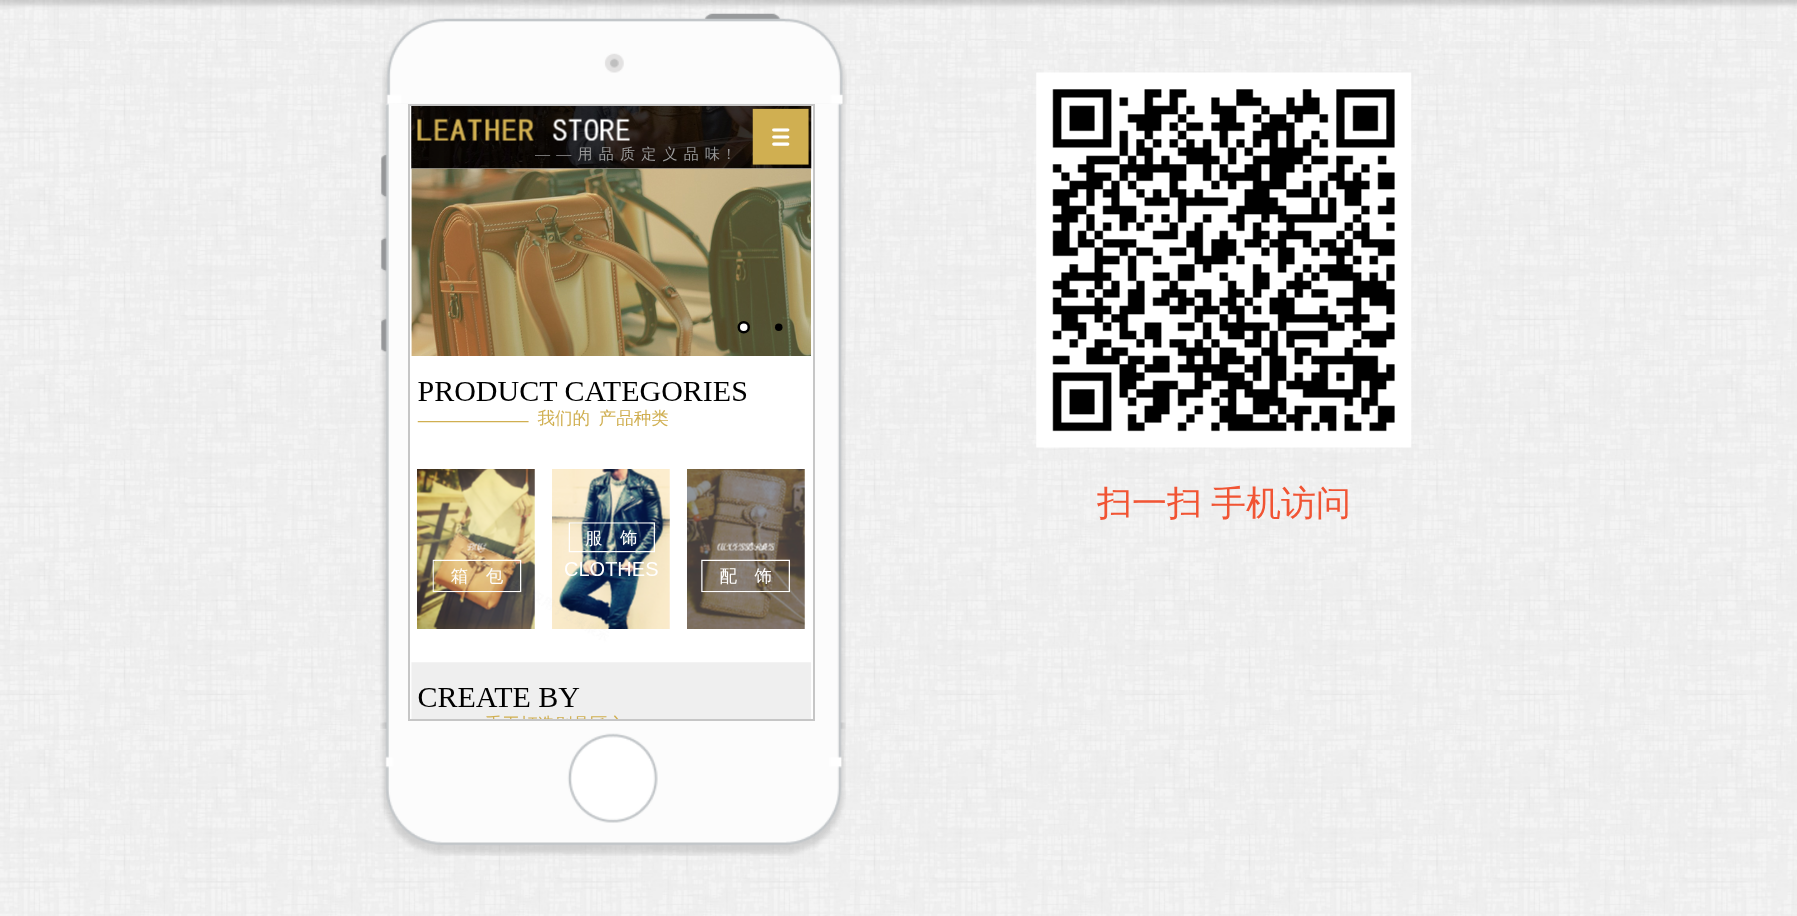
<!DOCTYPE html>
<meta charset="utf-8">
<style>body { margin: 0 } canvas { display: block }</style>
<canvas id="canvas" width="1797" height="916"></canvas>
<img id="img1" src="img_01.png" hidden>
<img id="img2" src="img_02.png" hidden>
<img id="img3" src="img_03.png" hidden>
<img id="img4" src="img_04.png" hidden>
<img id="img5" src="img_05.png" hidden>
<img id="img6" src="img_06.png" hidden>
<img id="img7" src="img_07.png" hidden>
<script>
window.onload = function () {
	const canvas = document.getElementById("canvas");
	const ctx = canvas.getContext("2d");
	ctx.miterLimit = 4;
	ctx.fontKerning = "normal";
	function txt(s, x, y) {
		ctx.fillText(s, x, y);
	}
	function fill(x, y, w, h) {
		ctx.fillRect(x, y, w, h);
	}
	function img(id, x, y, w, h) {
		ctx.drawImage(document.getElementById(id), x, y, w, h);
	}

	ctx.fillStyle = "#FFFFFF";
	fill(0, 0, 1797, 916);
	img("img1", 0, 41, 1797, 875);
	img("img2", 0, 0, 1797, 41);
	img("img3", 382, 13, 465, 91);
	img("img4", 380, 103, 466, 626);
	ctx.strokeStyle = "#C6C6C6";
	ctx.lineWidth = 3;
	ctx.strokeRect(409.5, 105.5, 404, 614);
	fill(410, 106, 403, 613);
	img("img5", 411, 106, 401, 613);
	img("img6", 380, 722, 466, 134);
	img("img7", 1036, 72, 376, 376);
	ctx.font = "500 35px WenQuanYi Zen Hei";
	ctx.fillStyle = "#F15433";
	txt("扫一扫", 1097, 515);
	txt("手机访问", 1211, 515);
};
</script>
